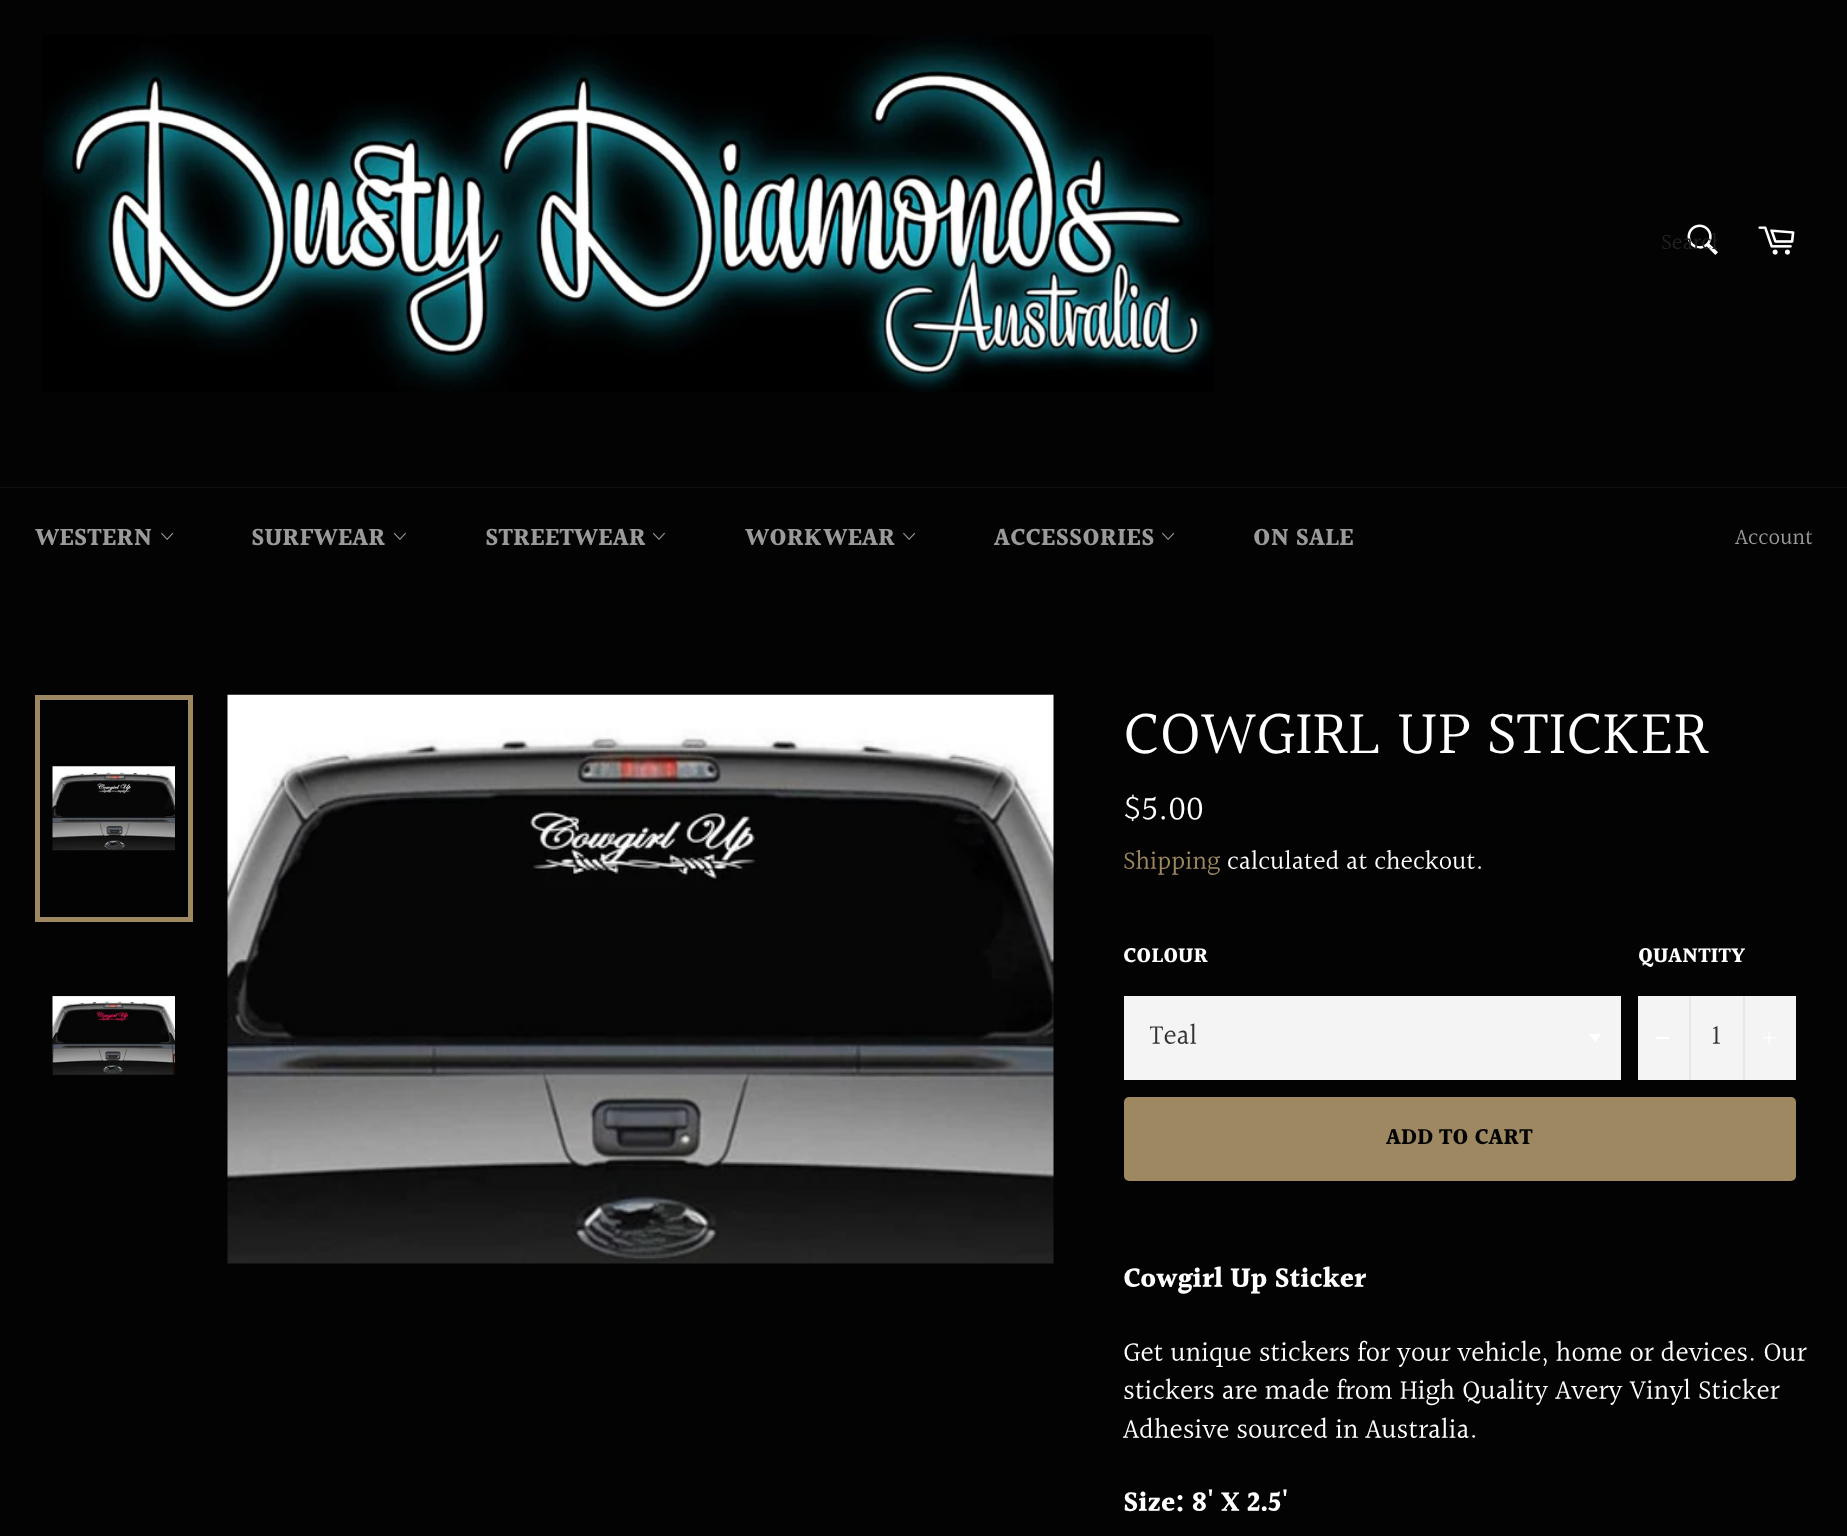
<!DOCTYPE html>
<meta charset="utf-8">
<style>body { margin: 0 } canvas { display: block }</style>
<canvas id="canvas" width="1847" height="1536"></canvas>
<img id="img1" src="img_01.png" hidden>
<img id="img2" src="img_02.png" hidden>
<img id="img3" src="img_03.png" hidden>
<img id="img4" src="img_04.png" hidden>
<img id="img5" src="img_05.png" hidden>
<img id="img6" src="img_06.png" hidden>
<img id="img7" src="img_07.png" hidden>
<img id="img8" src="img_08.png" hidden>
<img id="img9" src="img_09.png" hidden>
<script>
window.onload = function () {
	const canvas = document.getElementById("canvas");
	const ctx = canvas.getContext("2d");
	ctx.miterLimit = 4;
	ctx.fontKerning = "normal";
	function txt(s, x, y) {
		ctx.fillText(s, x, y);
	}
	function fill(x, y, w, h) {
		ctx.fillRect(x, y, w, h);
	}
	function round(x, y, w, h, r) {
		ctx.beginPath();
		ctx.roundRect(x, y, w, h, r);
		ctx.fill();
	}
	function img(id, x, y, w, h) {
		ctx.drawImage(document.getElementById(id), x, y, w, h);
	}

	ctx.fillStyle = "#030303";
	fill(0, 0, 1847, 1536);
	img("img1", 42, 35, 1172, 357);
	img("img2", 1687, 224, 31, 31);
	img("img3", 1758, 226, 37, 29);
	ctx.fillStyle = "#101010";
	fill(0, 487, 1847, 1);
	img("img4", 161, 532, 13, 8);
	img("img5", 393, 532, 13, 8);
	img("img5", 652, 532, 13, 8);
	img("img4", 903, 532, 13, 8);
	img("img4", 1162, 532, 13, 8);
	img("img6", 52, 766, 123, 85);
	ctx.strokeStyle = "#9E8861";
	ctx.lineWidth = 5;
	ctx.strokeRect(37.5, 697.5, 153, 222);
	img("img7", 52, 996, 123, 79);
	img("img8", 227, 694, 827, 570);
	ctx.fillStyle = "#F4F4F4";
	fill(1124, 996, 497, 84);
	ctx.fillStyle = "#FFFFFF";
	ctx.beginPath();
	ctx.moveTo(1589, 1034);
	ctx.lineTo(1595, 1042);
	ctx.lineTo(1601.5, 1034);
	ctx.closePath();
	ctx.fill();
	ctx.fillStyle = "#F4F4F4";
	fill(1638, 996, 158, 84);
	ctx.fillStyle = "#E7E7E7";
	fill(1689, 996, 2, 84);
	ctx.fillStyle = "#FFFFFF";
	fill(1656, 1037, 13, 2);
	ctx.fillStyle = "#E7E7E7";
	fill(1743, 996, 2, 84);
	img("img9", 1762, 1031, 14, 14);
	ctx.fillStyle = "#9E8861";
	round(1124, 1097, 672, 84, 5);
	ctx.save();
	ctx.beginPath();
	ctx.rect(1661, 226, 56, 35);
	ctx.clip();
	ctx.font = "22.75px Halant";
	ctx.fillStyle = "#222222";
	txt("Search", 1661, 250);
	ctx.restore();
	ctx.font = "bold 24.5px Halant";
	ctx.fillStyle = "#9A9A9A";
	txt("WESTERN", 35, 546);
	txt("SURFWEAR", 251, 546);
	txt("STREETWEAR", 485, 546);
	txt("WORKWEAR", 745, 546);
	txt("ACCESSORIES", 994, 546);
	txt("ON SALE", 1253, 546);
	ctx.font = "22.75px Halant";
	txt("Account", 1735, 545);
	ctx.font = "63px Halant";
	ctx.fillStyle = "#FFFFFF";
	txt("COWGIRL UP STICKER", 1123, 756);
	ctx.font = "35px Halant";
	txt("$5.00", 1123, 821);
	ctx.font = "26.25px Halant";
	ctx.fillStyle = "#9E8861";
	txt("Shipping", 1123, 870);
	ctx.fillStyle = "#FFFFFF";
	txt("calculated at checkout.", 1227, 870);
	ctx.font = "bold 21px Halant";
	txt("COLOUR", 1123, 963);
	ctx.save();
	ctx.beginPath();
	ctx.rect(1150, 1019, 422, 38);
	ctx.clip();
	ctx.font = "28px Halant";
	ctx.fillStyle = "#333333";
	txt("Teal", 1149, 1045);
	ctx.restore();
	txt("QUANTITY", 1638, 963);
	ctx.font = "28px Halant";
	ctx.fillStyle = "#333333";
	txt("1", 1712, 1045);
	ctx.font = "bold 22.75px Halant";
	ctx.fillStyle = "#030303";
	txt("ADD TO CART", 1386, 1145);
	ctx.font = "bold 28px Halant";
	ctx.fillStyle = "#FFFFFF";
	txt("Cowgirl Up Sticker", 1123, 1288);
	ctx.font = "28px Halant";
	txt("Get unique stickers for your vehicle, home or devices. Our", 1123, 1362);
	txt("stickers are made from High Quality Avery Vinyl Sticker", 1123, 1400);
	txt("Adhesive sourced in Australia.", 1123, 1439);
	ctx.font = "bold 28px Halant";
	txt("Size: 8' X 2.5'", 1123, 1512);
};
</script>
